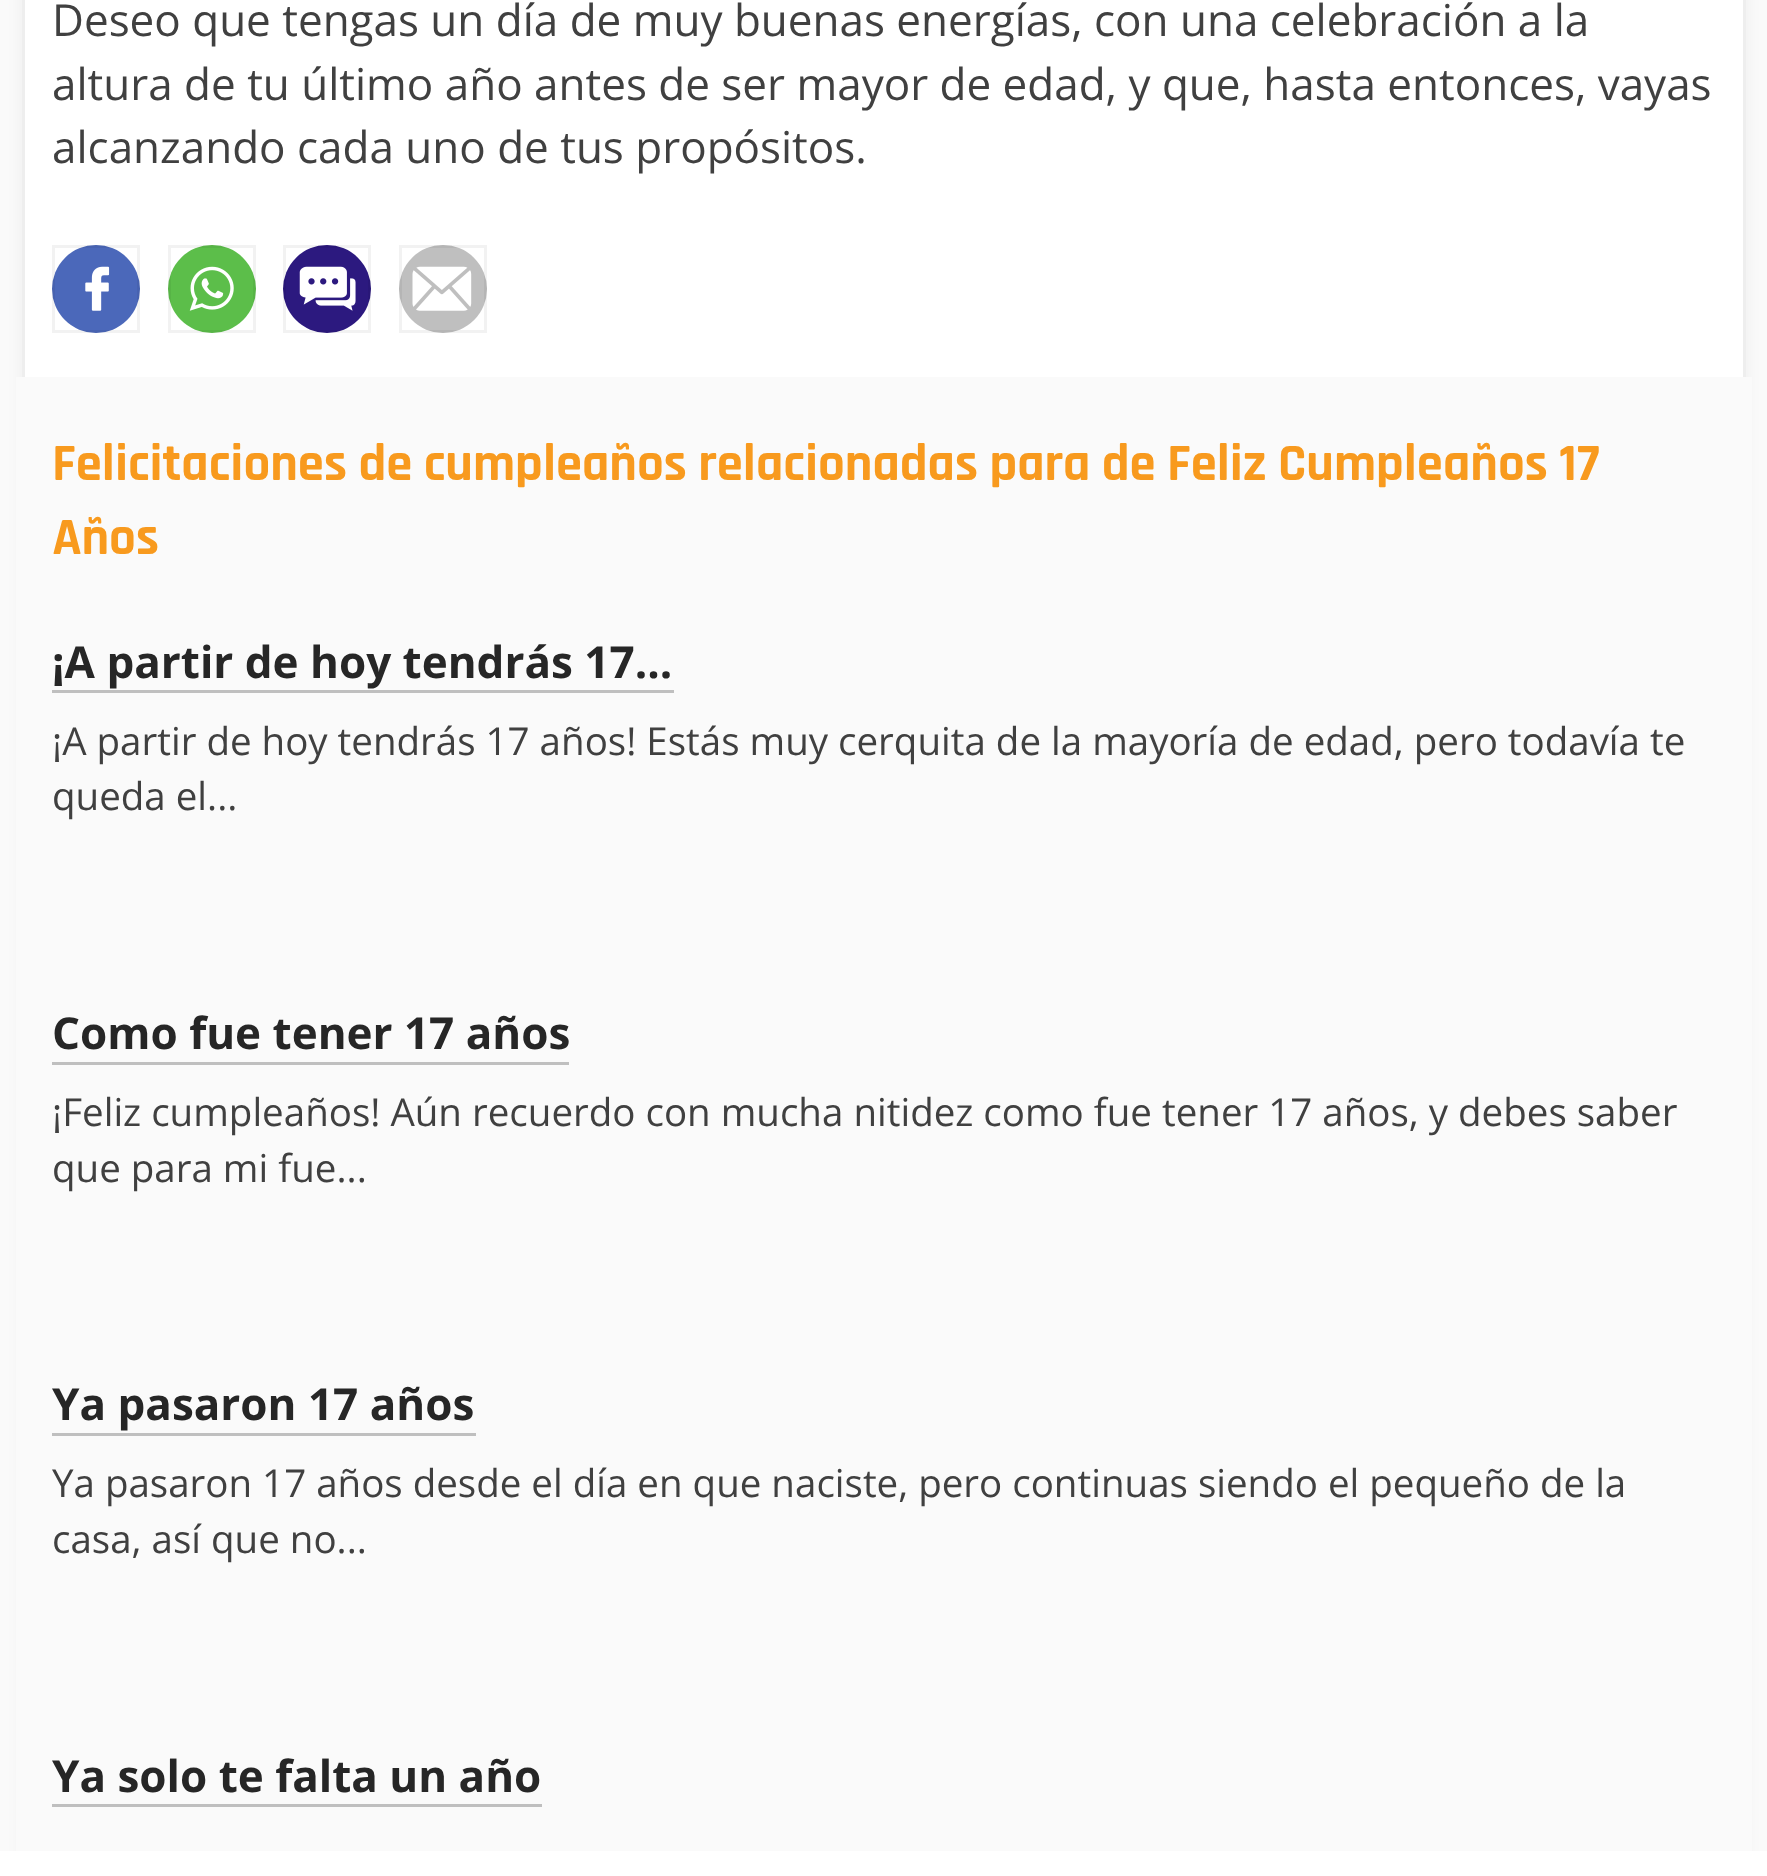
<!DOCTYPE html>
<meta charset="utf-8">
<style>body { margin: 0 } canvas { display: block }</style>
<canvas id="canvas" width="1767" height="1876"></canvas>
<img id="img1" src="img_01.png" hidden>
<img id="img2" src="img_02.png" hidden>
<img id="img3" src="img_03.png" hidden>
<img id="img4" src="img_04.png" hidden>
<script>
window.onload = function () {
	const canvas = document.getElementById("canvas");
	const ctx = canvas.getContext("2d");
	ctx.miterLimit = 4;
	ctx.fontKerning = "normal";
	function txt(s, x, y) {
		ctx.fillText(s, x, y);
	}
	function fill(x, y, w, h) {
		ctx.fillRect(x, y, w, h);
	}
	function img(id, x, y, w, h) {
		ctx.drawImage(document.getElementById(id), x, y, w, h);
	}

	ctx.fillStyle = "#FAFAFA";
	fill(0, 0, 1767, 1876);
	ctx.fillStyle = "rgba(0, 0, 0, 0.05)";
	ctx.filter = "blur(8px)";
	ctx.beginPath();
	ctx.rect(22, -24, 1724, 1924);
	ctx.fill();
	ctx.filter = "none";
	ctx.fillStyle = "#FFFFFF";
	fill(25, 0, 1718, 377);
	ctx.strokeStyle = "#EEEEEE";
	ctx.lineWidth = 3;
	ctx.strokeRect(23.5, -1.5, 1721, 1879);
	ctx.fillStyle = "#4B68BA";
	ctx.beginPath();
	ctx.arc(96, 289, 44, 0, Math.PI * 2);
	ctx.fill();
	ctx.strokeStyle = "rgba(0, 0, 0, 0.05)";
	ctx.strokeRect(53.5, 246.5, 85, 85);
	img("img1", 85, 266, 25, 45);
	ctx.fillStyle = "#5CBE4A";
	ctx.beginPath();
	ctx.arc(212, 289, 44, 0, Math.PI * 2);
	ctx.fill();
	ctx.strokeRect(169.5, 246.5, 85, 85);
	img("img2", 189, 266, 45, 45);
	ctx.fillStyle = "#2C197F";
	ctx.beginPath();
	ctx.arc(327, 289, 44, 0, Math.PI * 2);
	ctx.fill();
	ctx.strokeRect(284.5, 246.5, 85, 85);
	img("img3", 299, 266, 57, 45);
	ctx.fillStyle = "#BFBFBF";
	ctx.beginPath();
	ctx.arc(443, 289, 44, 0, Math.PI * 2);
	ctx.fill();
	ctx.strokeRect(400.5, 246.5, 85, 85);
	img("img4", 412, 266, 60, 45);
	ctx.fillStyle = "#FAFAFA";
	fill(16, 377, 1736, 1474);
	ctx.fillStyle = "#BFBFBF";
	fill(52, 690, 622, 3);
	fill(52, 1062, 517, 3);
	fill(52, 1433, 424, 3);
	fill(52, 1804, 490, 3);
	ctx.fillStyle = "#FFFFFF";
	fill(0, 1851, 1767, 25);
	ctx.font = "44px Open Sans";
	ctx.fillStyle = "#404040";
	txt("Deseo que tengas un día de muy buenas energías, con una celebración a la", 52, 36);
	txt("altura de tu último año antes de ser mayor de edad, y que, hasta entonces, vayas", 52, 100);
	txt("alcanzando cada uno de tus propósitos.", 52, 163);
	ctx.wordSpacing = "-0.25px";
	ctx.font = "bold 52.8px Rajdhani";
	ctx.fillStyle = "#F89A1E";
	txt("Felicitaciones de cumpleaños relacionadas para de Feliz Cumpleaños 17", 52, 480);
	ctx.wordSpacing = "0px";
	txt("Años", 52, 554);
	ctx.font = "bold 44px Open Sans";
	ctx.fillStyle = "#262626";
	txt("¡A partir de hoy tendrás 17...", 52, 678);
	ctx.font = "38.5px Open Sans";
	ctx.fillStyle = "#404040";
	txt("¡A partir de hoy tendrás 17 años! Estás muy cerquita de la mayoría de edad, pero todavía te", 52, 755);
	txt("queda el...", 52, 810);
	ctx.font = "bold 44px Open Sans";
	ctx.fillStyle = "#262626";
	txt("Como fue tener 17 años", 52, 1049);
	ctx.font = "38.5px Open Sans";
	ctx.fillStyle = "#404040";
	txt("¡Feliz cumpleaños! Aún recuerdo con mucha nitidez como fue tener 17 años, y debes saber", 52, 1126);
	txt("que para mi fue...", 52, 1182);
	ctx.font = "bold 44px Open Sans";
	ctx.fillStyle = "#262626";
	txt("Ya pasaron 17 años", 52, 1420);
	ctx.font = "38.5px Open Sans";
	ctx.fillStyle = "#404040";
	txt("Ya pasaron 17 años desde el día en que naciste, pero continuas siendo el pequeño de la", 52, 1497);
	txt("casa, así que no...", 52, 1553);
	ctx.font = "bold 44px Open Sans";
	ctx.fillStyle = "#262626";
	txt("Ya solo te falta un año", 52, 1792);
};
</script>
